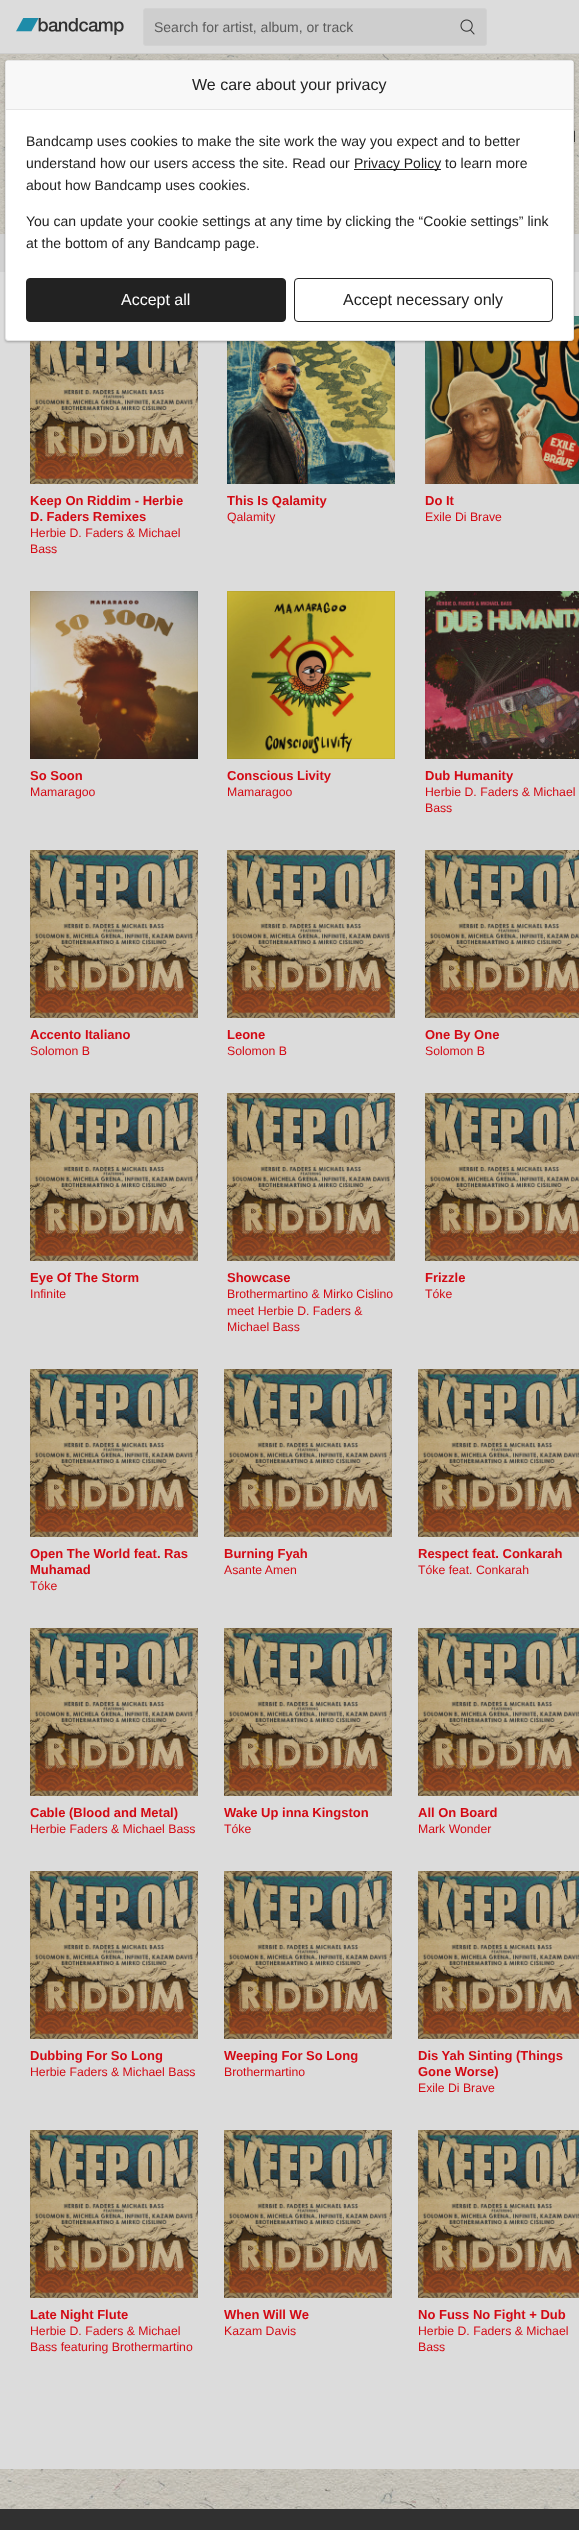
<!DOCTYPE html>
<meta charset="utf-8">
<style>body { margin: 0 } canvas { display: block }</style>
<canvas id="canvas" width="579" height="2530"></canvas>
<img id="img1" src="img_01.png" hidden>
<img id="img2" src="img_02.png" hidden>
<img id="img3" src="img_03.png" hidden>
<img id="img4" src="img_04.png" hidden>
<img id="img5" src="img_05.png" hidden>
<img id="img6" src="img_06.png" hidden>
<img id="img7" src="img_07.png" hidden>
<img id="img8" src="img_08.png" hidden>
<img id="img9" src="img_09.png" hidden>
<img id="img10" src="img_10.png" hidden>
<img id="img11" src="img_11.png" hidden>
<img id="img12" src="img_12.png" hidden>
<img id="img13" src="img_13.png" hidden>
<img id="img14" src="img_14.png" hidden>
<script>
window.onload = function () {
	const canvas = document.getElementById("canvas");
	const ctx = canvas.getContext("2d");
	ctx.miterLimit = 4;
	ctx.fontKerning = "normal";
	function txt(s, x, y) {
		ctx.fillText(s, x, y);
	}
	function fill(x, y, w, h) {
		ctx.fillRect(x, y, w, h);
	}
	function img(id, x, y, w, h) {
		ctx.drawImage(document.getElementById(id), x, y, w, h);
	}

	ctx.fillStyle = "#FFFFFF";
	fill(0, 0, 579, 2530);
	img("img1", 0, 2469, 579, 40);
	ctx.fillStyle = "#DCDCDC";
	fill(0, 0, 579, 53);
	ctx.fillStyle = "#CDCDCD";
	fill(0, 53, 579, 1);
	img("img2", 16, 18, 108, 17);
	ctx.fillStyle = "#CECECE";
	ctx.beginPath();
	ctx.roundRect(143.5, 8.5, 343, 37, 2.5);
	ctx.fill();
	ctx.strokeStyle = "#D2D2D2";
	ctx.stroke();
	img("img3", 460, 19, 15, 16);
	ctx.fillStyle = "#303030";
	fill(0, 2509, 579, 21);
	ctx.fillStyle = "#DCDCDC";
	fill(0, 272, 579, 2197);
	img("img4", 0, 54, 579, 180);
	ctx.fillStyle = "#D1D1D1";
	fill(0, 234, 579, 38);
	img("img5", 30, 341, 168, 143);
	ctx.strokeStyle = "rgba(5, 5, 5, 0.05)";
	ctx.strokeRect(30.5, 316.5, 167, 167);
	img("img6", 227, 341, 168, 143);
	ctx.strokeRect(227.5, 316.5, 167, 167);
	img("img7", 425, 316, 154, 168);
	ctx.strokeRect(425.5, 316.5, 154, 167);
	ctx.fillStyle = "rgba(34, 34, 34, 0.32)";
	ctx.filter = "blur(1px)";
	ctx.beginPath();
	ctx.roundRect(5, 61, 569, 281, 3);
	ctx.fill();
	ctx.filter = "none";
	ctx.fillStyle = "#FFFFFF";
	ctx.beginPath();
	ctx.roundRect(5.5, 60.5, 568, 280, 2.5);
	ctx.fill();
	ctx.strokeStyle = "#E6E6E6";
	ctx.stroke();
	ctx.fillStyle = "#F8F8F8";
	fill(6, 61, 567, 48);
	ctx.fillStyle = "#E6E6E6";
	fill(6, 109, 567, 1);
	ctx.fillStyle = "#222222";
	fill(354, 169, 87, 1);
	ctx.beginPath();
	ctx.roundRect(26.5, 278.5, 259, 43, 3.5);
	ctx.fill();
	ctx.strokeStyle = "#222222";
	ctx.stroke();
	ctx.beginPath();
	ctx.roundRect(294.5, 278.5, 258, 43, 3.5);
	ctx.stroke();
	img("img8", 30, 591, 168, 168);
	ctx.strokeStyle = "rgba(5, 5, 5, 0.05)";
	ctx.strokeRect(30.5, 591.5, 167, 167);
	img("img9", 227, 591, 168, 168);
	ctx.strokeRect(227.5, 591.5, 167, 167);
	img("img10", 425, 591, 154, 168);
	ctx.strokeRect(425.5, 591.5, 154, 167);
	img("img11", 30, 850, 168, 168);
	ctx.strokeRect(30.5, 850.5, 167, 167);
	img("img12", 227, 850, 168, 168);
	ctx.strokeRect(227.5, 850.5, 167, 167);
	img("img13", 425, 850, 154, 168);
	ctx.strokeRect(425.5, 850.5, 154, 167);
	img("img11", 30, 1093, 168, 168);
	ctx.strokeRect(30.5, 1093.5, 167, 167);
	img("img12", 227, 1093, 168, 168);
	ctx.strokeRect(227.5, 1093.5, 167, 167);
	img("img13", 425, 1093, 154, 168);
	ctx.strokeRect(425.5, 1093.5, 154, 167);
	img("img11", 30, 1369, 168, 168);
	ctx.strokeRect(30.5, 1369.5, 167, 167);
	img("img11", 224, 1369, 168, 168);
	ctx.strokeRect(224.5, 1369.5, 167, 167);
	img("img14", 418, 1369, 161, 168);
	ctx.strokeRect(418.5, 1369.5, 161, 167);
	img("img11", 30, 1628, 168, 168);
	ctx.strokeRect(30.5, 1628.5, 167, 167);
	img("img11", 224, 1628, 168, 168);
	ctx.strokeRect(224.5, 1628.5, 167, 167);
	img("img14", 418, 1628, 161, 168);
	ctx.strokeRect(418.5, 1628.5, 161, 167);
	img("img11", 30, 1871, 168, 168);
	ctx.strokeRect(30.5, 1871.5, 167, 167);
	img("img11", 224, 1871, 168, 168);
	ctx.strokeRect(224.5, 1871.5, 167, 167);
	img("img14", 418, 1871, 161, 168);
	ctx.strokeRect(418.5, 1871.5, 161, 167);
	img("img11", 30, 2130, 168, 168);
	ctx.strokeRect(30.5, 2130.5, 167, 167);
	img("img11", 224, 2130, 168, 168);
	ctx.strokeRect(224.5, 2130.5, 167, 167);
	img("img14", 418, 2130, 161, 168);
	ctx.strokeRect(418.5, 2130.5, 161, 167);
	ctx.font = "14px Liberation Sans";
	ctx.fillStyle = "#5B5B5B";
	txt("Search for artist, album, or track", 154, 32);
	ctx.font = "16px Liberation Sans";
	ctx.fillStyle = "#222222";
	txt("We care about your privacy", 192, 90);
	ctx.font = "14px Liberation Sans";
	txt("Bandcamp uses cookies to make the site work the way you expect and to better", 26, 146);
	txt("understand how our users access the site. Read our", 26, 168);
	txt("Privacy Policy to learn more", 354, 168);
	txt("about how Bandcamp uses cookies.", 26, 190);
	txt("You can update your cookie settings at any time by clicking the “Cookie settings” link", 26, 226);
	txt("at the bottom of any Bandcamp page.", 26, 248);
	ctx.font = "16px Liberation Sans";
	ctx.fillStyle = "#FFFFFF";
	txt("Accept all", 121, 305);
	ctx.fillStyle = "#222222";
	txt("Accept necessary only", 343, 305);
	ctx.font = "bold 13px Liberation Sans";
	ctx.fillStyle = "#D30A14";
	txt("Keep On Riddim - Herbie", 30, 505);
	txt("D. Faders Remixes", 30, 521);
	ctx.font = "12.25px Liberation Sans";
	txt("Herbie D. Faders & Michael", 30, 537);
	txt("Bass", 30, 553);
	ctx.font = "bold 13px Liberation Sans";
	txt("This Is Qalamity", 227, 505);
	ctx.font = "12.25px Liberation Sans";
	txt("Qalamity", 227, 521);
	ctx.font = "bold 13px Liberation Sans";
	txt("Do It", 425, 505);
	ctx.font = "12.25px Liberation Sans";
	txt("Exile Di Brave", 425, 521);
	ctx.font = "bold 13px Liberation Sans";
	txt("So Soon", 30, 780);
	ctx.font = "12.25px Liberation Sans";
	txt("Mamaragoo", 30, 796);
	ctx.font = "bold 13px Liberation Sans";
	txt("Conscious Livity", 227, 780);
	ctx.font = "12.25px Liberation Sans";
	txt("Mamaragoo", 227, 796);
	ctx.font = "bold 13px Liberation Sans";
	txt("Dub Humanity", 425, 780);
	ctx.font = "12.25px Liberation Sans";
	txt("Herbie D. Faders & Michael", 425, 796);
	txt("Bass", 425, 812);
	ctx.font = "bold 13px Liberation Sans";
	txt("Accento Italiano", 30, 1039);
	ctx.font = "12.25px Liberation Sans";
	txt("Solomon B", 30, 1055);
	ctx.font = "bold 13px Liberation Sans";
	txt("Leone", 227, 1039);
	ctx.font = "12.25px Liberation Sans";
	txt("Solomon B", 227, 1055);
	ctx.font = "bold 13px Liberation Sans";
	txt("One By One", 425, 1039);
	ctx.font = "12.25px Liberation Sans";
	txt("Solomon B", 425, 1055);
	ctx.font = "bold 13px Liberation Sans";
	txt("Eye Of The Storm", 30, 1282);
	ctx.font = "12.25px Liberation Sans";
	txt("Infinite", 30, 1298);
	ctx.font = "bold 13px Liberation Sans";
	txt("Showcase", 227, 1282);
	ctx.font = "12.25px Liberation Sans";
	txt("Brothermartino & Mirko Cislino", 227, 1298);
	txt("meet Herbie D. Faders &", 227, 1315);
	txt("Michael Bass", 227, 1331);
	ctx.font = "bold 13px Liberation Sans";
	txt("Frizzle", 425, 1282);
	ctx.font = "12.25px Liberation Sans";
	txt("Tóke", 425, 1298);
	ctx.font = "bold 13px Liberation Sans";
	txt("Open The World feat. Ras", 30, 1558);
	txt("Muhamad", 30, 1574);
	ctx.font = "12.25px Liberation Sans";
	txt("Tóke", 30, 1590);
	ctx.font = "bold 13px Liberation Sans";
	txt("Burning Fyah", 224, 1558);
	ctx.font = "12.25px Liberation Sans";
	txt("Asante Amen", 224, 1574);
	ctx.font = "bold 13px Liberation Sans";
	txt("Respect feat. Conkarah", 418, 1558);
	ctx.font = "12.25px Liberation Sans";
	txt("Tóke feat. Conkarah", 418, 1574);
	ctx.font = "bold 13px Liberation Sans";
	txt("Cable (Blood and Metal)", 30, 1817);
	ctx.font = "12.25px Liberation Sans";
	txt("Herbie Faders & Michael Bass", 30, 1833);
	ctx.font = "bold 13px Liberation Sans";
	txt("Wake Up inna Kingston", 224, 1817);
	ctx.font = "12.25px Liberation Sans";
	txt("Tóke", 224, 1833);
	ctx.font = "bold 13px Liberation Sans";
	txt("All On Board", 418, 1817);
	ctx.font = "12.25px Liberation Sans";
	txt("Mark Wonder", 418, 1833);
	ctx.font = "bold 13px Liberation Sans";
	txt("Dubbing For So Long", 30, 2060);
	ctx.font = "12.25px Liberation Sans";
	txt("Herbie Faders & Michael Bass", 30, 2076);
	ctx.font = "bold 13px Liberation Sans";
	txt("Weeping For So Long", 224, 2060);
	ctx.font = "12.25px Liberation Sans";
	txt("Brothermartino", 224, 2076);
	ctx.font = "bold 13px Liberation Sans";
	txt("Dis Yah Sinting (Things", 418, 2060);
	txt("Gone Worse)", 418, 2076);
	ctx.font = "12.25px Liberation Sans";
	txt("Exile Di Brave", 418, 2092);
	ctx.font = "bold 13px Liberation Sans";
	txt("Late Night Flute", 30, 2319);
	ctx.font = "12.25px Liberation Sans";
	txt("Herbie D. Faders & Michael", 30, 2335);
	txt("Bass featuring Brothermartino", 30, 2351);
	ctx.font = "bold 13px Liberation Sans";
	txt("When Will We", 224, 2319);
	ctx.font = "12.25px Liberation Sans";
	txt("Kazam Davis", 224, 2335);
	ctx.font = "bold 13px Liberation Sans";
	txt("No Fuss No Fight + Dub", 418, 2319);
	ctx.font = "12.25px Liberation Sans";
	txt("Herbie D. Faders & Michael", 418, 2335);
	txt("Bass", 418, 2351);
};
</script>
